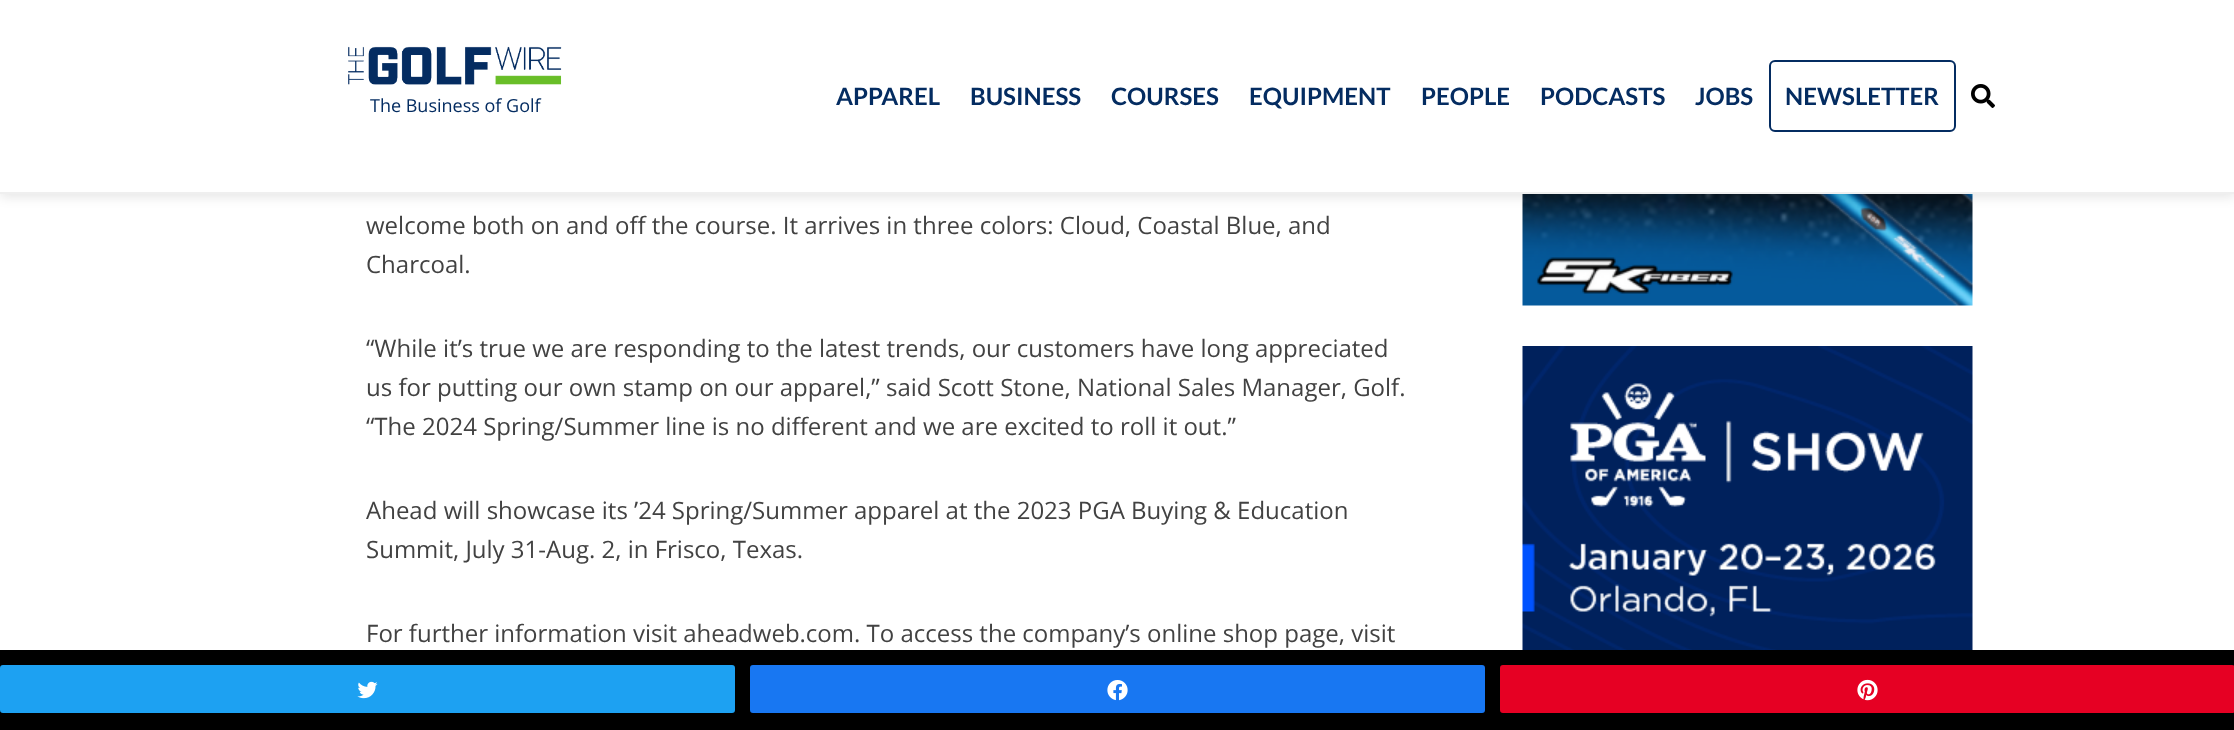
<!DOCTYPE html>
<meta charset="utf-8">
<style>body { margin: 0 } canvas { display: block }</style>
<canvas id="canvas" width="2234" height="730"></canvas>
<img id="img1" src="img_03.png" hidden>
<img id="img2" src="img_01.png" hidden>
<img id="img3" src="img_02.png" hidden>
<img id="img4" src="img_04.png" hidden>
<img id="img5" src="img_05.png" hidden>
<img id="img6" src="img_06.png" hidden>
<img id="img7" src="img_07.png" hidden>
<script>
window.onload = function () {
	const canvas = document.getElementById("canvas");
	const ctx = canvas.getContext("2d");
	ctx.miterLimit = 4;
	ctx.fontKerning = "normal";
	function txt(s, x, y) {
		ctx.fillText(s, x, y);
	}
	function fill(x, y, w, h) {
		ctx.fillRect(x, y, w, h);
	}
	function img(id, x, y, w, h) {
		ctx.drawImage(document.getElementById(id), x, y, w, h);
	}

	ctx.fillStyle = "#FFFFFF";
	fill(0, 0, 2234, 730);
	img("img1", 1522, 194, 451, 112);
	ctx.fillStyle = "rgba(0, 0, 0, 0.1)";
	ctx.filter = "blur(6px)";
	ctx.beginPath();
	ctx.rect(0, 3, 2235, 194);
	ctx.fill();
	ctx.filter = "none";
	ctx.fillStyle = "#EFEFEF";
	fill(0, 192, 2234, 2);
	ctx.fillStyle = "#FFFFFF";
	fill(0, 0, 2234, 192);
	img("img2", 348, 46, 214, 39);
	ctx.beginPath();
	ctx.roundRect(1770, 61, 185, 70, 5);
	ctx.strokeStyle = "#042C61";
	ctx.lineWidth = 2;
	ctx.stroke();
	img("img3", 1971, 84, 24, 24);
	img("img4", 1522, 346, 451, 304);
	ctx.fillStyle = "#000000";
	fill(0, 650, 2234, 80);
	ctx.fillStyle = "#1DA1F2";
	ctx.beginPath();
	ctx.roundRect(1, 666, 733, 46, 2);
	ctx.fill();
	ctx.strokeStyle = "#1DA1F2";
	ctx.stroke();
	img("img5", 357, 681, 21, 18);
	ctx.fillStyle = "#1877F2";
	ctx.beginPath();
	ctx.roundRect(751, 666, 733, 46, 2);
	ctx.fill();
	ctx.strokeStyle = "#1877F2";
	ctx.stroke();
	img("img6", 1107, 680, 21, 21);
	ctx.fillStyle = "#E60023";
	ctx.beginPath();
	ctx.roundRect(1501, 666, 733, 46, 2);
	ctx.fill();
	ctx.strokeStyle = "#E60023";
	ctx.stroke();
	img("img7", 1857, 679, 21, 22);
	ctx.font = "18px Open Sans";
	ctx.fillStyle = "#042C61";
	txt("The Business of Golf", 370, 112);
	ctx.font = "bold 24px Lato";
	txt("APPAREL", 836, 105);
	txt("BUSINESS", 970, 105);
	txt("COURSES", 1111, 105);
	txt("EQUIPMENT", 1249, 105);
	txt("PEOPLE", 1421, 105);
	txt("PODCASTS", 1540, 105);
	txt("JOBS", 1695, 105);
	txt("NEWSLETTER", 1785, 105);
	ctx.font = "24px Open Sans";
	ctx.fillStyle = "#424242";
	txt("welcome both on and off the course. It arrives in three colors: Cloud, Coastal Blue, and", 366, 234);
	txt("Charcoal.", 366, 273);
	txt("“While it’s true we are responding to the latest trends, our customers have long appreciated", 366, 357);
	txt("us for putting our own stamp on our apparel,” said Scott Stone, National Sales Manager, Golf.", 366, 396);
	txt("“The 2024 Spring/Summer line is no different and we are excited to roll it out.”", 366, 435);
	txt("Ahead will showcase its ’24 Spring/Summer apparel at the 2023 PGA Buying & Education", 366, 519);
	txt("Summit, July 31-Aug. 2, in Frisco, Texas.", 366, 558);
	txt("For further information visit aheadweb.com. To access the company’s online shop page, visit", 366, 642);
};
</script>
